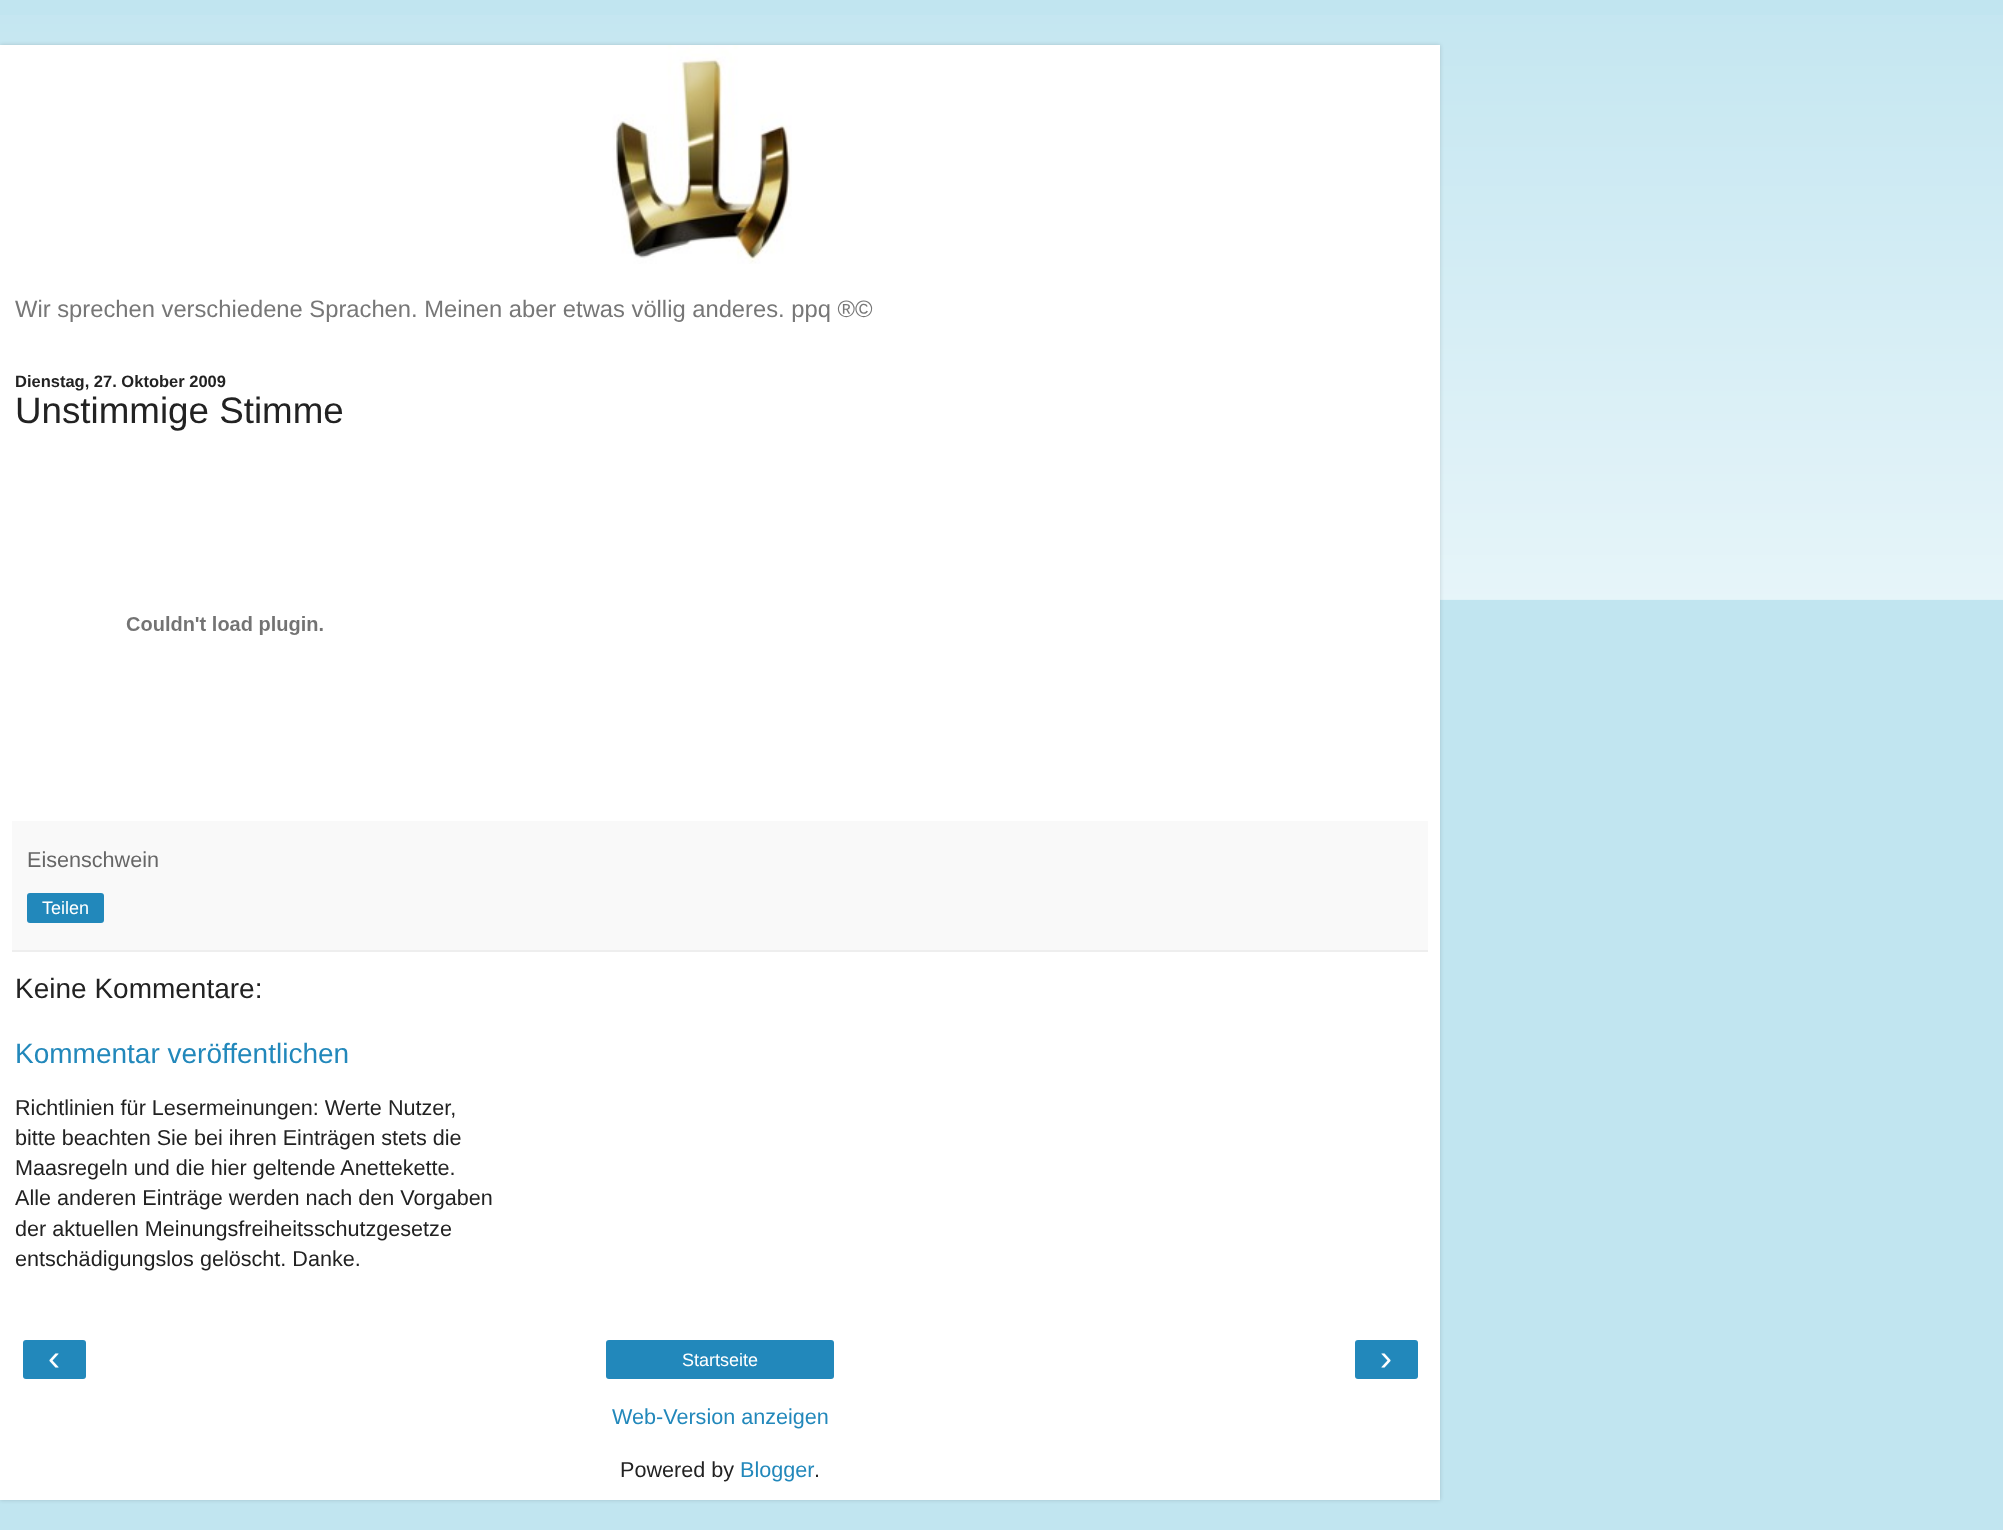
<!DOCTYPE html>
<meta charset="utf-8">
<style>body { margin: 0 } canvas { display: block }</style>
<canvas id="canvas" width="2003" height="1530"></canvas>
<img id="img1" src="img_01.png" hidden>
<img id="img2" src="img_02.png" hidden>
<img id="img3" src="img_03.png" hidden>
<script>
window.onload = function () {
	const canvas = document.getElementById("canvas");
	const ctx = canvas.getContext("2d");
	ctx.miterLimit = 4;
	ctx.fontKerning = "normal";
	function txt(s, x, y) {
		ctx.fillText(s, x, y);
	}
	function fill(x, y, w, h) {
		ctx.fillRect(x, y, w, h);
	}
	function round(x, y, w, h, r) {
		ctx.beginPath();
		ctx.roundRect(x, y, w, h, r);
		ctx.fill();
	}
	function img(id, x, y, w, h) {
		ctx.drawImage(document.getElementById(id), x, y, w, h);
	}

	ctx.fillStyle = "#C1E5F0";
	fill(0, 0, 2003, 1530);
	img("img1", 0, 15, 2003, 585);
	ctx.fillStyle = "rgba(0, 0, 0, 0.15)";
	ctx.filter = "blur(2px)";
	ctx.beginPath();
	ctx.rect(0, 45, 1440, 1455);
	ctx.fill();
	ctx.filter = "none";
	ctx.fillStyle = "#FFFFFF";
	fill(0, 45, 1440, 1455);
	img("img2", 612, 45, 180, 219);
	img("img3", 126, 616, 197, 19);
	ctx.fillStyle = "#F9F9F9";
	fill(12, 821, 1416, 129);
	ctx.fillStyle = "#EEEEEE";
	fill(12, 950, 1416, 2);
	ctx.fillStyle = "#2288BB";
	round(27, 893, 77, 30, 3);
	round(23, 1340, 63, 39, 3);
	round(606, 1340, 228, 39, 3);
	round(1355, 1340, 63, 39, 3);
	ctx.font = "23.75px Liberation Sans";
	ctx.fillStyle = "#777777";
	txt("Wir sprechen verschiedene Sprachen. Meinen aber etwas völlig anderes. ppq ®©", 15, 317);
	ctx.font = "bold 16.5px Liberation Sans";
	ctx.fillStyle = "#222222";
	txt("Dienstag, 27. Oktober 2009", 15, 387);
	ctx.font = "36.75px Liberation Sans";
	txt("Unstimmige Stimme", 15, 423);
	ctx.font = "21.6px Liberation Sans";
	ctx.fillStyle = "#666666";
	txt("Eisenschwein", 27, 867);
	ctx.font = "18px Liberation Sans";
	ctx.fillStyle = "#FFFFFF";
	txt("Teilen", 42, 914);
	ctx.font = "28px Liberation Sans";
	ctx.fillStyle = "#222222";
	txt("Keine Kommentare:", 15, 998);
	ctx.fillStyle = "#2288BB";
	txt("Kommentar veröffentlichen", 15, 1063);
	ctx.font = "21.6px Liberation Sans";
	ctx.fillStyle = "#222222";
	txt("Richtlinien für Lesermeinungen: Werte Nutzer,", 15, 1115);
	txt("bitte beachten Sie bei ihren Einträgen stets die", 15, 1145);
	txt("Maasregeln und die hier geltende Anettekette.", 15, 1175);
	txt("Alle anderen Einträge werden nach den Vorgaben", 15, 1205);
	txt("der aktuellen Meinungsfreiheitsschutzgesetze", 15, 1236);
	txt("entschädigungslos gelöscht. Danke.", 15, 1266);
	ctx.font = "36px Liberation Sans";
	ctx.fillStyle = "#FFFFFF";
	txt("‹", 48, 1370);
	ctx.font = "18px Liberation Sans";
	txt("Startseite", 682, 1366);
	ctx.font = "36px Liberation Sans";
	txt("›", 1380, 1370);
	ctx.font = "21.6px Liberation Sans";
	ctx.fillStyle = "#2288BB";
	txt("Web-Version anzeigen", 612, 1424);
	ctx.fillStyle = "#222222";
	txt("Powered by", 620, 1477);
	ctx.fillStyle = "#2288BB";
	txt("Blogger", 740, 1477);
	ctx.fillStyle = "#222222";
	txt(".", 814, 1477);
};
</script>
